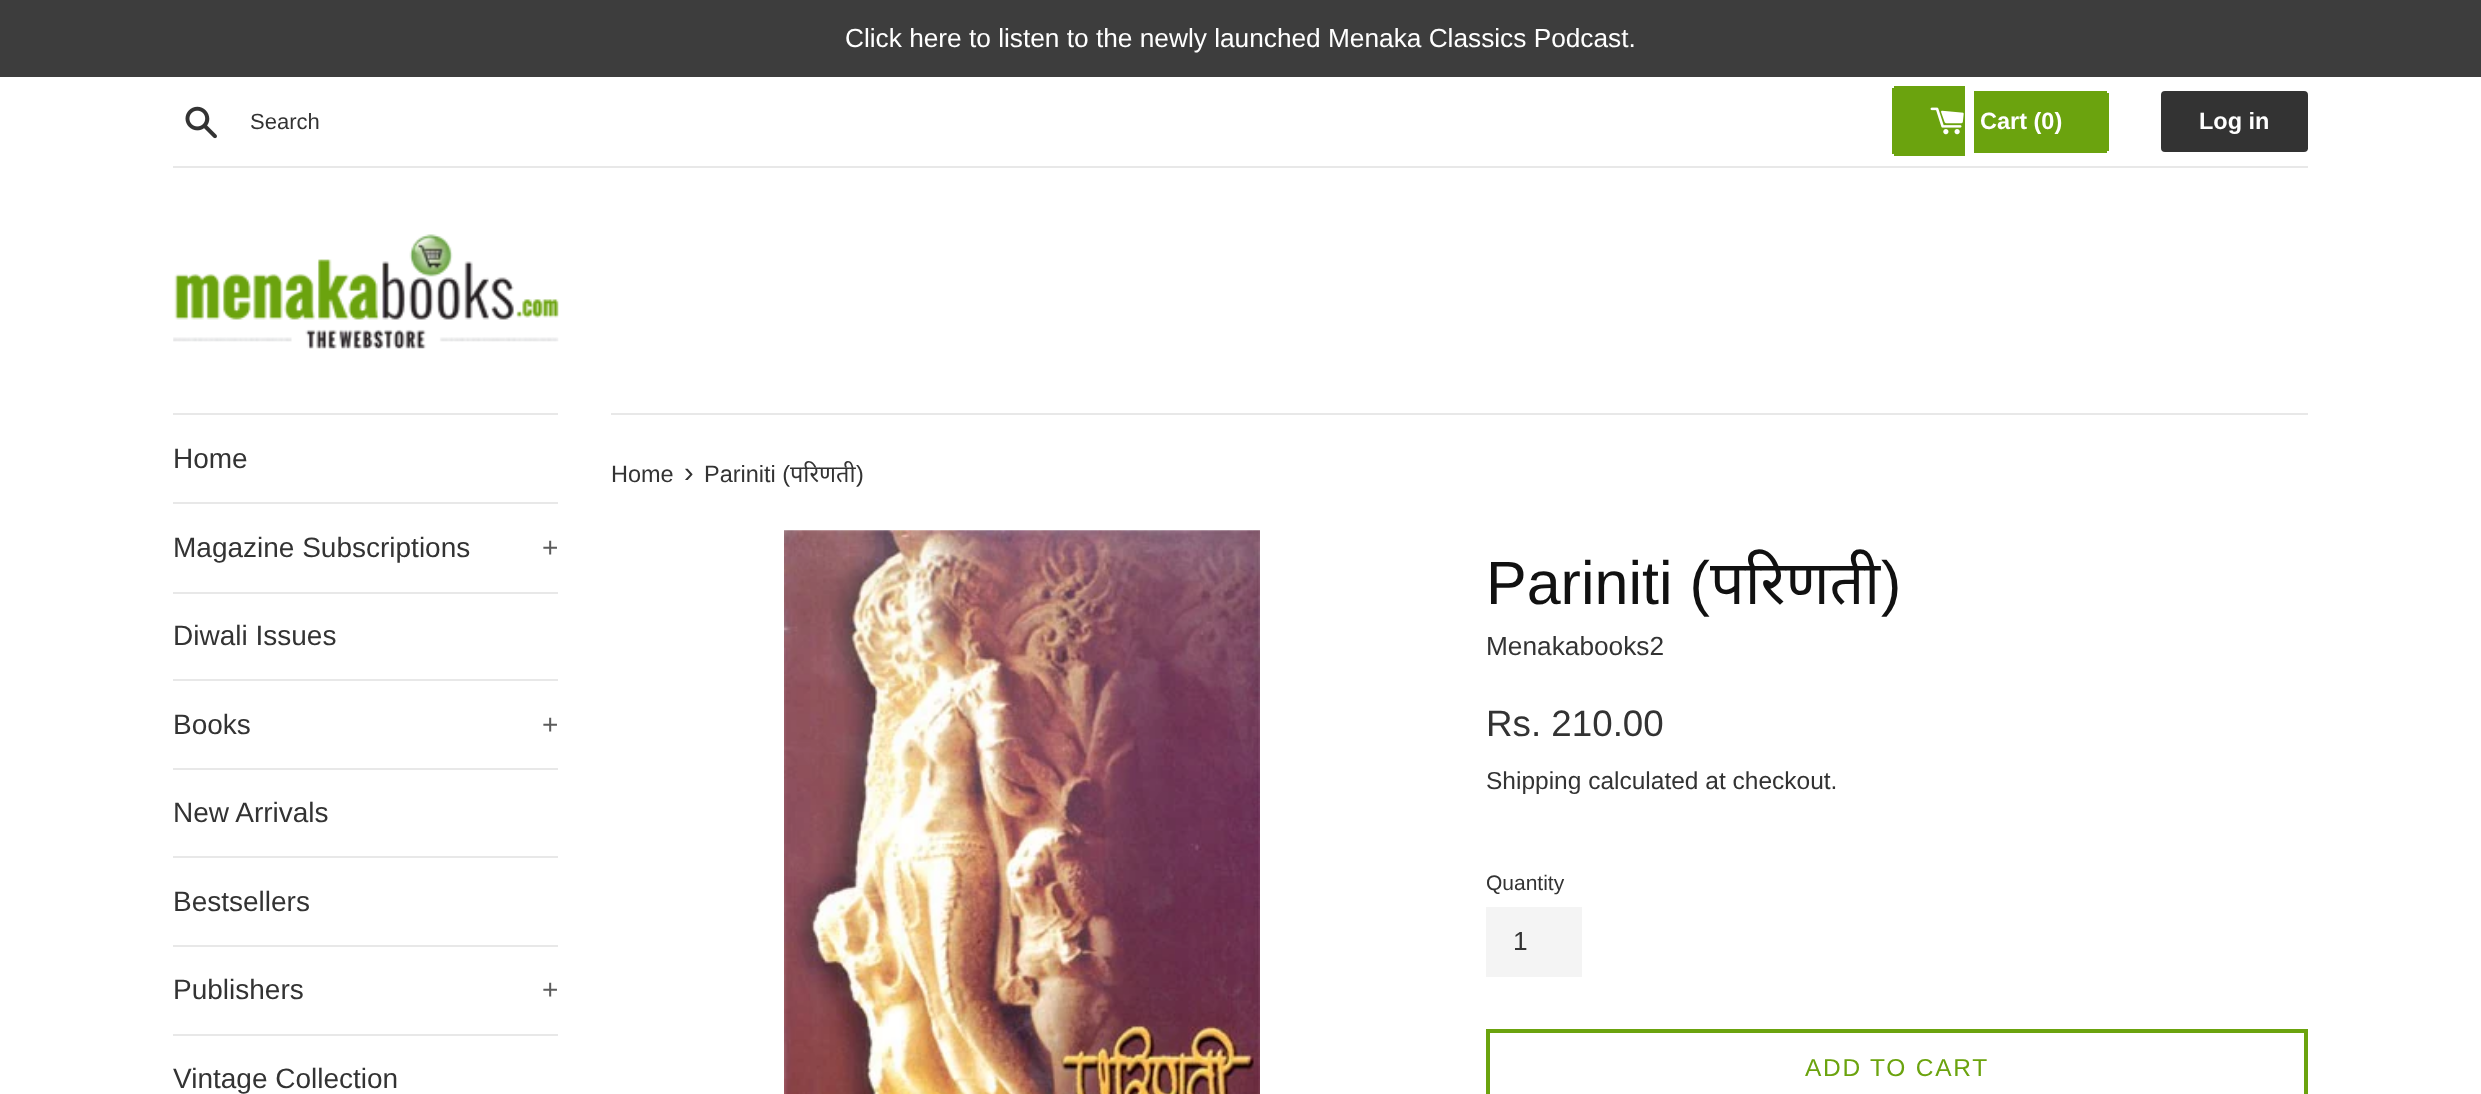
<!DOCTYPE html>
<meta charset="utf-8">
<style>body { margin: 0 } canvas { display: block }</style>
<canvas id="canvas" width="2481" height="1094"></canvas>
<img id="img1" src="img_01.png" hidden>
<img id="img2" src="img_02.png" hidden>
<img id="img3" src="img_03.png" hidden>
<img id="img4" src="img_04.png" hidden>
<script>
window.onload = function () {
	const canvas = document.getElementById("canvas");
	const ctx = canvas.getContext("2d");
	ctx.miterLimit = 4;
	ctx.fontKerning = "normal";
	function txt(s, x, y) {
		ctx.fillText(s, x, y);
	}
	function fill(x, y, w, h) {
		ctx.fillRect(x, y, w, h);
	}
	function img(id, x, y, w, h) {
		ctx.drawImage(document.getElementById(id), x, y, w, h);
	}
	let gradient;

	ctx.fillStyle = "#FFFFFF";
	fill(0, 0, 2481, 1094);
	ctx.fillStyle = "#3D3D3D";
	fill(0, 0, 2481, 77);
	img("img1", 185, 106, 32, 33);
	gradient = ctx.createLinearGradient(2210, 334, 2456, -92);
	gradient.addColorStop(0.5, "#6BA30E");
	gradient.addColorStop(0.5, "#FFFFFF");
	ctx.fillStyle = gradient;
	fill(1896, 90, 69, 62);
	ctx.fillStyle = "#6BA30E";
	fill(1894, 86, 71, 4);
	fill(1894, 152, 71, 4);
	fill(1892, 88, 4, 66);
	gradient = ctx.createLinearGradient(2290, 331, 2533, -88);
	gradient.addColorStop(0.5, "#6BA30E");
	gradient.addColorStop(0.5, "#FFFFFF");
	ctx.fillStyle = gradient;
	fill(1974, 95, 5, 54);
	ctx.fillStyle = "#6BA30E";
	fill(1974, 91, 133, 4);
	fill(1974, 149, 81, 4);
	gradient = ctx.createLinearGradient(2296, 331, 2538, -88);
	gradient.addColorStop(0.5, "#6BA30E");
	gradient.addColorStop(0.5, "#FFFFFF");
	ctx.fillStyle = gradient;
	fill(1979, 95, 63, 54);
	gradient = ctx.createLinearGradient(2359, 331, 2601, -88);
	gradient.addColorStop(0.5, "#6BA30E");
	gradient.addColorStop(0.5, "#FFFFFF");
	ctx.fillStyle = gradient;
	fill(2042, 95, 13, 54);
	gradient = ctx.createLinearGradient(2371, 331, 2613, -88);
	gradient.addColorStop(0.5, "#6BA30E");
	gradient.addColorStop(0.5, "#FFFFFF");
	ctx.fillStyle = gradient;
	fill(2055, 95, 50, 54);
	ctx.fillStyle = "#6BA30E";
	fill(2105, 93, 4, 58);
	fill(2055, 149, 52, 4);
	img("img2", 1930, 107, 34, 28);
	gradient = ctx.createLinearGradient(2481, 331, 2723, -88);
	gradient.addColorStop(0.5, "#333333");
	gradient.addColorStop(0.5, "#FFFFFF");
	ctx.fillStyle = gradient;
	fill(2165, 95, 143, 54);
	ctx.beginPath();
	ctx.roundRect(2163, 93, 143, 57, 2);
	ctx.strokeStyle = "#333333";
	ctx.lineWidth = 4;
	ctx.stroke();
	ctx.fillStyle = "#E8E8E8";
	fill(173, 166, 2135, 2);
	img("img3", 173, 234, 386, 115);
	fill(173, 413, 385, 2);
	fill(173, 502, 385, 2);
	fill(173, 592, 385, 2);
	fill(173, 679, 385, 2);
	fill(173, 768, 385, 2);
	fill(173, 856, 385, 2);
	fill(173, 945, 385, 2);
	fill(173, 1034, 385, 2);
	fill(611, 413, 1697, 2);
	img("img4", 784, 530, 476, 564);
	ctx.fillStyle = "#F4F4F4";
	fill(1486, 907, 96, 70);
	ctx.strokeStyle = "#6BA30E";
	ctx.strokeRect(1488, 1031, 818, 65);
	ctx.font = "26.25px Liberation Sans";
	ctx.fillStyle = "#FFFFFF";
	txt("Click here to listen to the newly launched Menaka Classics Podcast.", 845, 47);
	ctx.font = "22px Liberation Sans";
	ctx.fillStyle = "#333333";
	txt("Search", 250, 129);
	ctx.font = "bold 23.5px Liberation Sans";
	ctx.fillStyle = "#FFFFFF";
	txt("Cart (0)", 1980, 129);
	txt("Log in", 2199, 129);
	ctx.font = "28px Liberation Sans";
	ctx.fillStyle = "#333333";
	txt("Home", 173, 468);
	txt("Magazine Subscriptions", 173, 557);
	ctx.fillStyle = "#5C5C5C";
	txt("+", 542, 557);
	ctx.fillStyle = "#333333";
	txt("Diwali Issues", 173, 645);
	txt("Books", 173, 734);
	ctx.fillStyle = "#5C5C5C";
	txt("+", 542, 734);
	ctx.fillStyle = "#333333";
	txt("New Arrivals", 173, 822);
	txt("Bestsellers", 173, 911);
	txt("Publishers", 173, 999);
	ctx.fillStyle = "#5C5C5C";
	txt("+", 542, 999);
	ctx.fillStyle = "#333333";
	txt("Vintage Collection", 173, 1088);
	ctx.font = "23.5px Liberation Sans";
	txt("Home", 611, 482);
	ctx.font = "29px Liberation Sans";
	txt("›", 684, 482);
	ctx.font = "23.5px Liberation Sans";
	txt("Pariniti (", 704, 482);
	ctx.font = "23.5px Noto Sans";
	txt("परिणती", 790, 482);
	ctx.font = "23.5px Liberation Sans";
	txt(")", 856, 482);
	ctx.font = "61px Liberation Sans";
	ctx.fillStyle = "#111111";
	txt("Pariniti (", 1486, 604);
	ctx.font = "61px Noto Sans";
	txt("परिणती", 1710, 604);
	ctx.font = "61px Liberation Sans";
	txt(")", 1881, 604);
	ctx.font = "26.25px Liberation Sans";
	ctx.fillStyle = "#333333";
	txt("Menakabooks2", 1486, 655);
	ctx.font = "36.75px Liberation Sans";
	txt("Rs. 210.00", 1486, 736);
	ctx.font = "24.5px Liberation Sans";
	txt("Shipping calculated at checkout.", 1486, 789);
	ctx.font = "21px Liberation Sans";
	txt("Quantity", 1486, 890);
	ctx.font = "26.25px Liberation Sans";
	txt("1", 1513, 950);
	ctx.letterSpacing = "1.75px";
	ctx.font = "24.5px Liberation Sans";
	ctx.fillStyle = "#6BA30E";
	txt("ADD TO CART", 1805, 1076);
};
</script>
